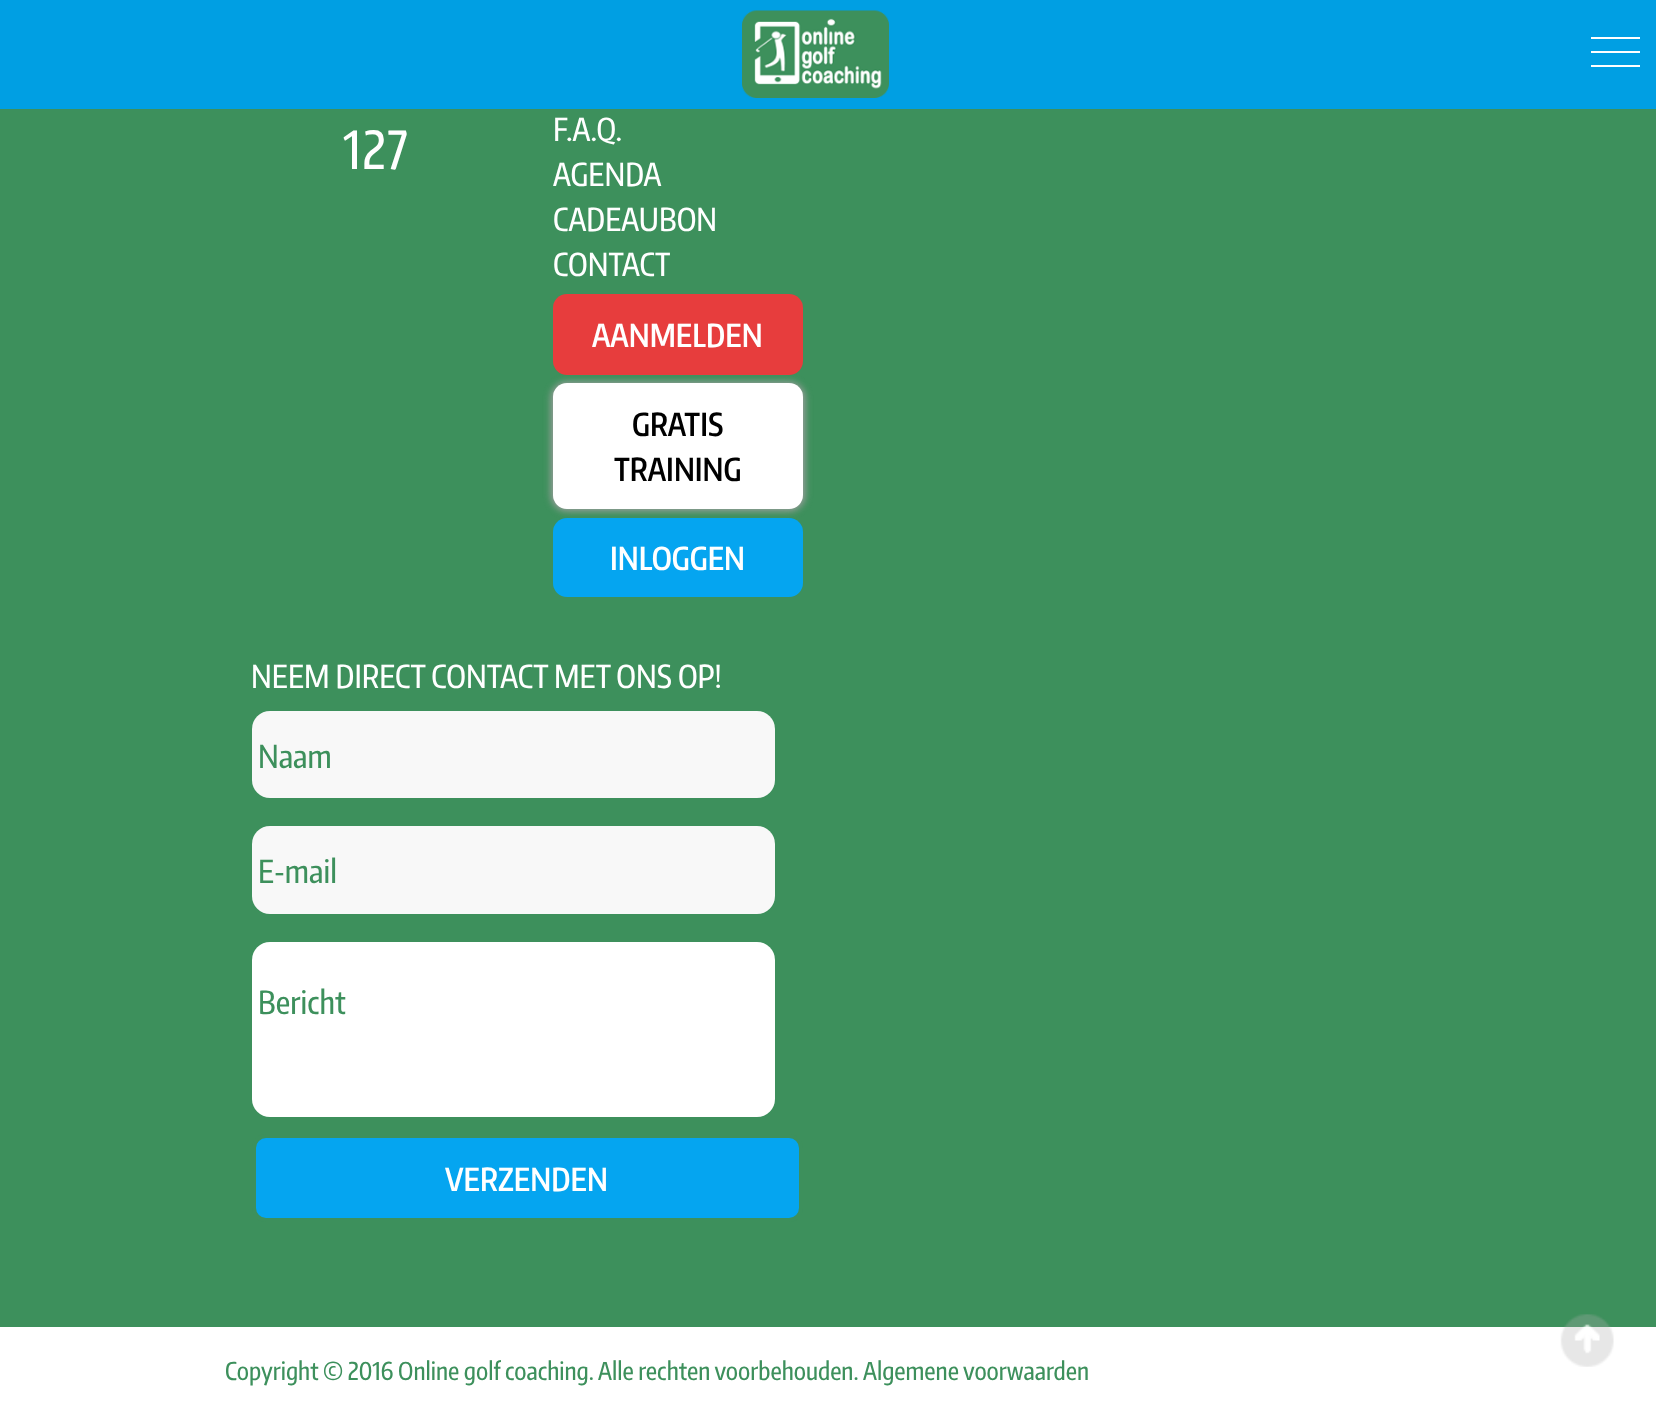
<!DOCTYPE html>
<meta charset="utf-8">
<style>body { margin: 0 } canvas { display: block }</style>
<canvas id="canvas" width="1656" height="1414"></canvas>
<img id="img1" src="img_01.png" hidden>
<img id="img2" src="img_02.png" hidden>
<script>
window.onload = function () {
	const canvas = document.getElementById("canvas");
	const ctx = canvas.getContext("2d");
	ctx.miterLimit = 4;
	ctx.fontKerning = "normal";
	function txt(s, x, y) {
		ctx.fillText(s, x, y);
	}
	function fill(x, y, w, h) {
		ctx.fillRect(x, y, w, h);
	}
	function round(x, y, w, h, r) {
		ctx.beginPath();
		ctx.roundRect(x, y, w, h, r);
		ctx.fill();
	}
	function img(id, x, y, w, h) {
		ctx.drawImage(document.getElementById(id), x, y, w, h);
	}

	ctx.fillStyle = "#3D905C";
	fill(0, 0, 1656, 1414);
	ctx.fillStyle = "#009FE3";
	fill(0, 0, 1656, 109);
	img("img1", 742, 10, 147, 88);
	ctx.fillStyle = "#FFFFFF";
	fill(1591, 51, 49, 2);
	fill(1591, 37, 49, 2);
	fill(1591, 65, 49, 2);
	ctx.fillStyle = "#E73D3D";
	round(553, 294, 250, 81, 14);
	ctx.fillStyle = "#9E9E9E";
	ctx.filter = "blur(3.5px)";
	ctx.beginPath();
	ctx.roundRect(551, 382, 254, 129, 16);
	ctx.fill();
	ctx.filter = "none";
	ctx.fillStyle = "#FFFFFF";
	round(553, 383, 250, 126, 14);
	ctx.fillStyle = "#05A5F0";
	round(553, 518, 250, 79, 14);
	ctx.fillStyle = "#F8F8F8";
	round(252, 711, 523, 87, 18);
	round(252, 826, 523, 88, 18);
	ctx.fillStyle = "#FFFFFF";
	round(252, 942, 523, 175, 18);
	ctx.fillStyle = "#05A5F0";
	ctx.beginPath();
	ctx.roundRect(254, 1136, 547, 84, 12);
	ctx.fill();
	ctx.strokeStyle = "#3D905C";
	ctx.lineWidth = 4;
	ctx.stroke();
	ctx.fillStyle = "#FFFFFF";
	fill(0, 1327, 1656, 87);
	img("img2", 1560, 1314, 54, 53);
	ctx.letterSpacing = "1.5px";
	ctx.font = "500 52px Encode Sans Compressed";
	txt("127", 343, 169);
	ctx.letterSpacing = "0px";
	ctx.font = "500 31.5px Encode Sans Compressed";
	txt("F.A.Q.", 553, 141);
	txt("AGENDA", 553, 186);
	txt("CADEAUBON", 553, 231);
	txt("CONTACT", 553, 276);
	ctx.font = "600 31.5px Encode Sans Compressed";
	txt("AANMELDEN", 592, 347);
	ctx.fillStyle = "#000000";
	txt("GRATIS", 632, 436);
	txt("TRAINING", 614, 481);
	ctx.fillStyle = "#FFFFFF";
	txt("INLOGGEN", 610, 570);
	ctx.font = "500 31.5px Encode Sans Compressed";
	txt("NEEM DIRECT CONTACT MET ONS OP!", 251, 688);
	ctx.fillStyle = "#3D905C";
	txt("Naam", 258, 768);
	txt("E-mail", 258, 883);
	txt("Bericht", 258, 1014);
	ctx.font = "600 31.5px Encode Sans Compressed";
	ctx.fillStyle = "#FFFFFF";
	txt("VERZENDEN", 445, 1191);
	ctx.font = "500 24.5px Encode Sans Compressed";
	ctx.fillStyle = "#3D905C";
	txt("Copyright © 2016 Online golf coaching. Alle rechten voorbehouden.", 225, 1380);
	txt("Algemene voorwaarden", 863, 1380);
};
</script>
